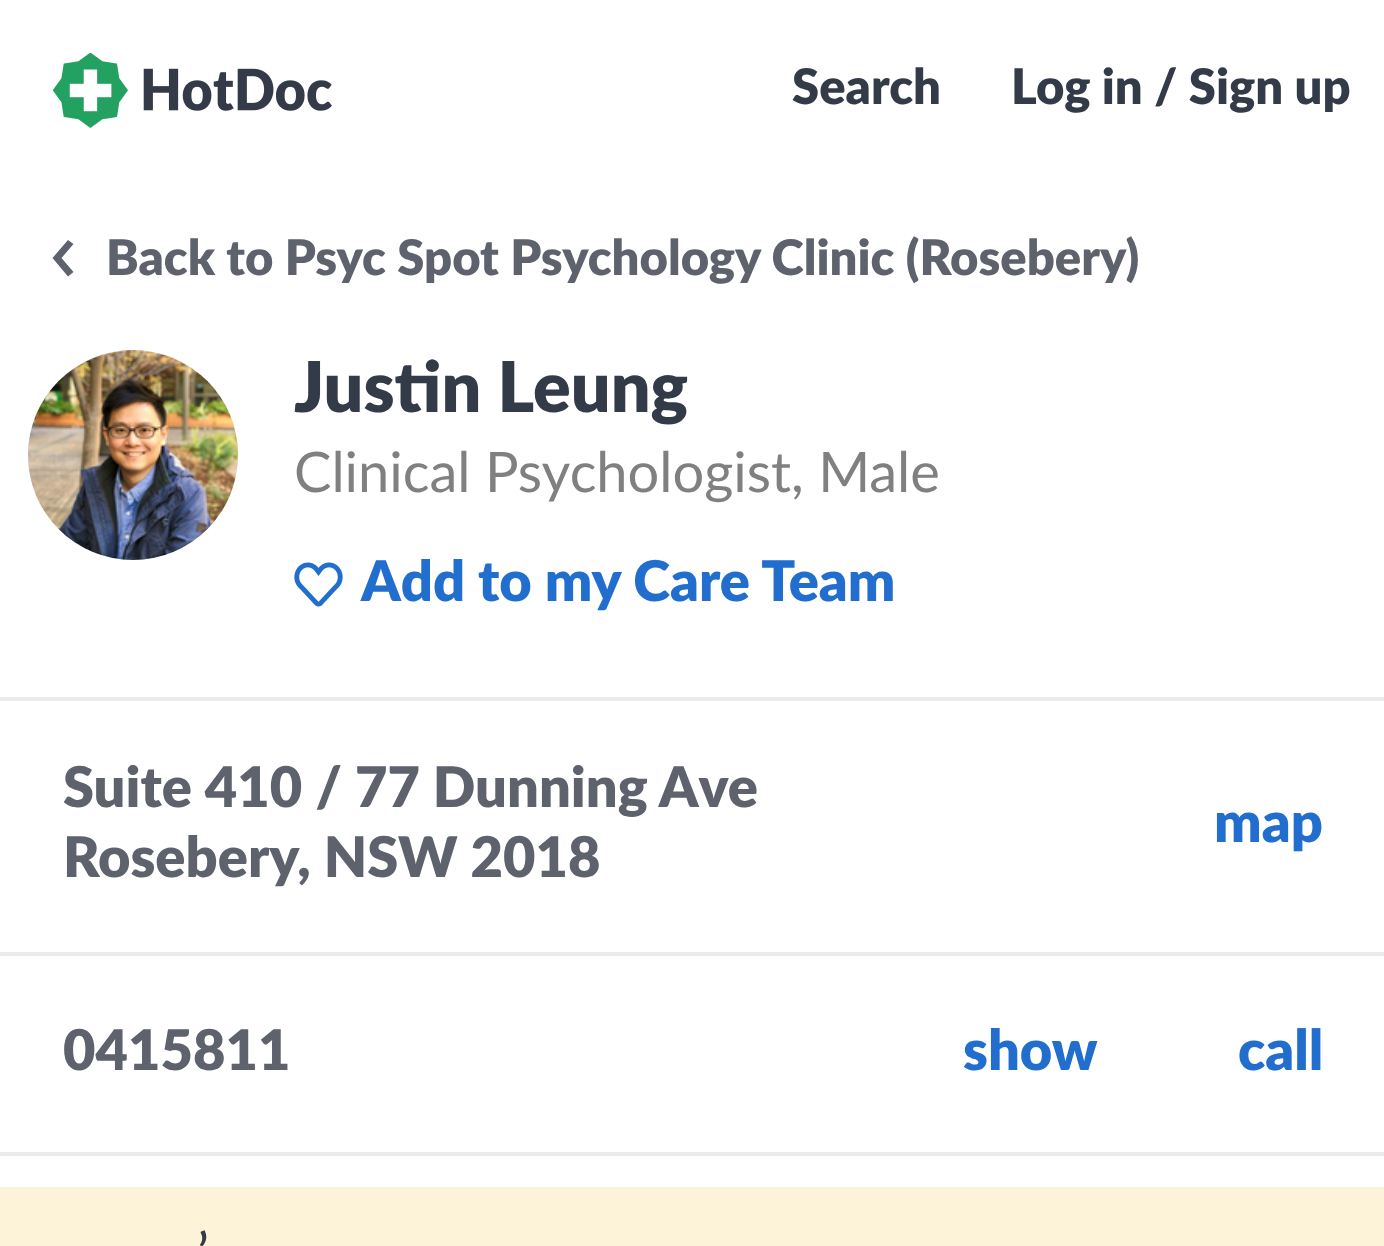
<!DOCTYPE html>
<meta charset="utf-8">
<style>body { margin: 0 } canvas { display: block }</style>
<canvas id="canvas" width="1384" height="1246"></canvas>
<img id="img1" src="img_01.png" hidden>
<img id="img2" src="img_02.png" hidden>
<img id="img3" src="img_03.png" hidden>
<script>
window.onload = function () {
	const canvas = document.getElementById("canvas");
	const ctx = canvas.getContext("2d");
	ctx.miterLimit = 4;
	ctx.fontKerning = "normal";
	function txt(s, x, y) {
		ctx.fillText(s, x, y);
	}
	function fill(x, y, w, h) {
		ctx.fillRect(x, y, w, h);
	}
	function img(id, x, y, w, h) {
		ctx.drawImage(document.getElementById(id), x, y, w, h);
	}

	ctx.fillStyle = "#FFFFFF";
	fill(0, 0, 1384, 1246);
	img("img1", 53, 53, 279, 75);
	ctx.fillStyle = "#5D626D";
	ctx.beginPath();
	ctx.moveTo(61.5, 258);
	ctx.lineTo(73.5, 244);
	ctx.lineTo(68, 240);
	ctx.lineTo(52.5, 258);
	ctx.lineTo(68, 276.5);
	ctx.lineTo(73.5, 272);
	ctx.closePath();
	ctx.fill();
	ctx.fillStyle = "#EAEBEC";
	ctx.beginPath();
	ctx.arc(133, 455, 105, 0, Math.PI * 2);
	ctx.fill();
	img("img2", 28, 350, 210, 210);
	img("img3", 294, 562, 49, 45);
	fill(0, 697, 1384, 4);
	fill(0, 952, 1384, 4);
	fill(0, 1152, 1384, 4);
	ctx.fillStyle = "#FDF3D9";
	fill(0, 1187, 1384, 59);
	ctx.font = "900 49px Lato";
	ctx.fillStyle = "#343B48";
	txt("Search", 792, 104);
	txt("Log in / Sign up", 1011, 104);
	ctx.fillStyle = "#5D626D";
	txt("Back to Psyc Spot Psychology Clinic (Rosebery)", 106, 275);
	ctx.font = "900 70px Lato";
	ctx.fillStyle = "#343B48";
	txt("Justin Leung", 294, 412);
	ctx.font = "56px Lato";
	ctx.fillStyle = "#808080";
	txt("Clinical Psychologist, Male", 294, 492);
	ctx.font = "900 56px Lato";
	ctx.fillStyle = "#216ECF";
	txt("Add to my Care Team", 361, 601);
	ctx.fillStyle = "#5D626D";
	txt("Suite 410 / 77 Dunning Ave", 63, 807);
	txt("Rosebery, NSW 2018", 63, 877);
	ctx.fillStyle = "#216ECF";
	txt("map", 1214, 842);
	ctx.fillStyle = "#5D626D";
	txt("0415811", 63, 1070);
	ctx.fillStyle = "#216ECF";
	txt("show", 963, 1070);
	txt("call", 1238, 1070);
	ctx.font = "56px Lato";
	ctx.fillStyle = "#343B48";
	txt("’", 197, 1273);
};
</script>
